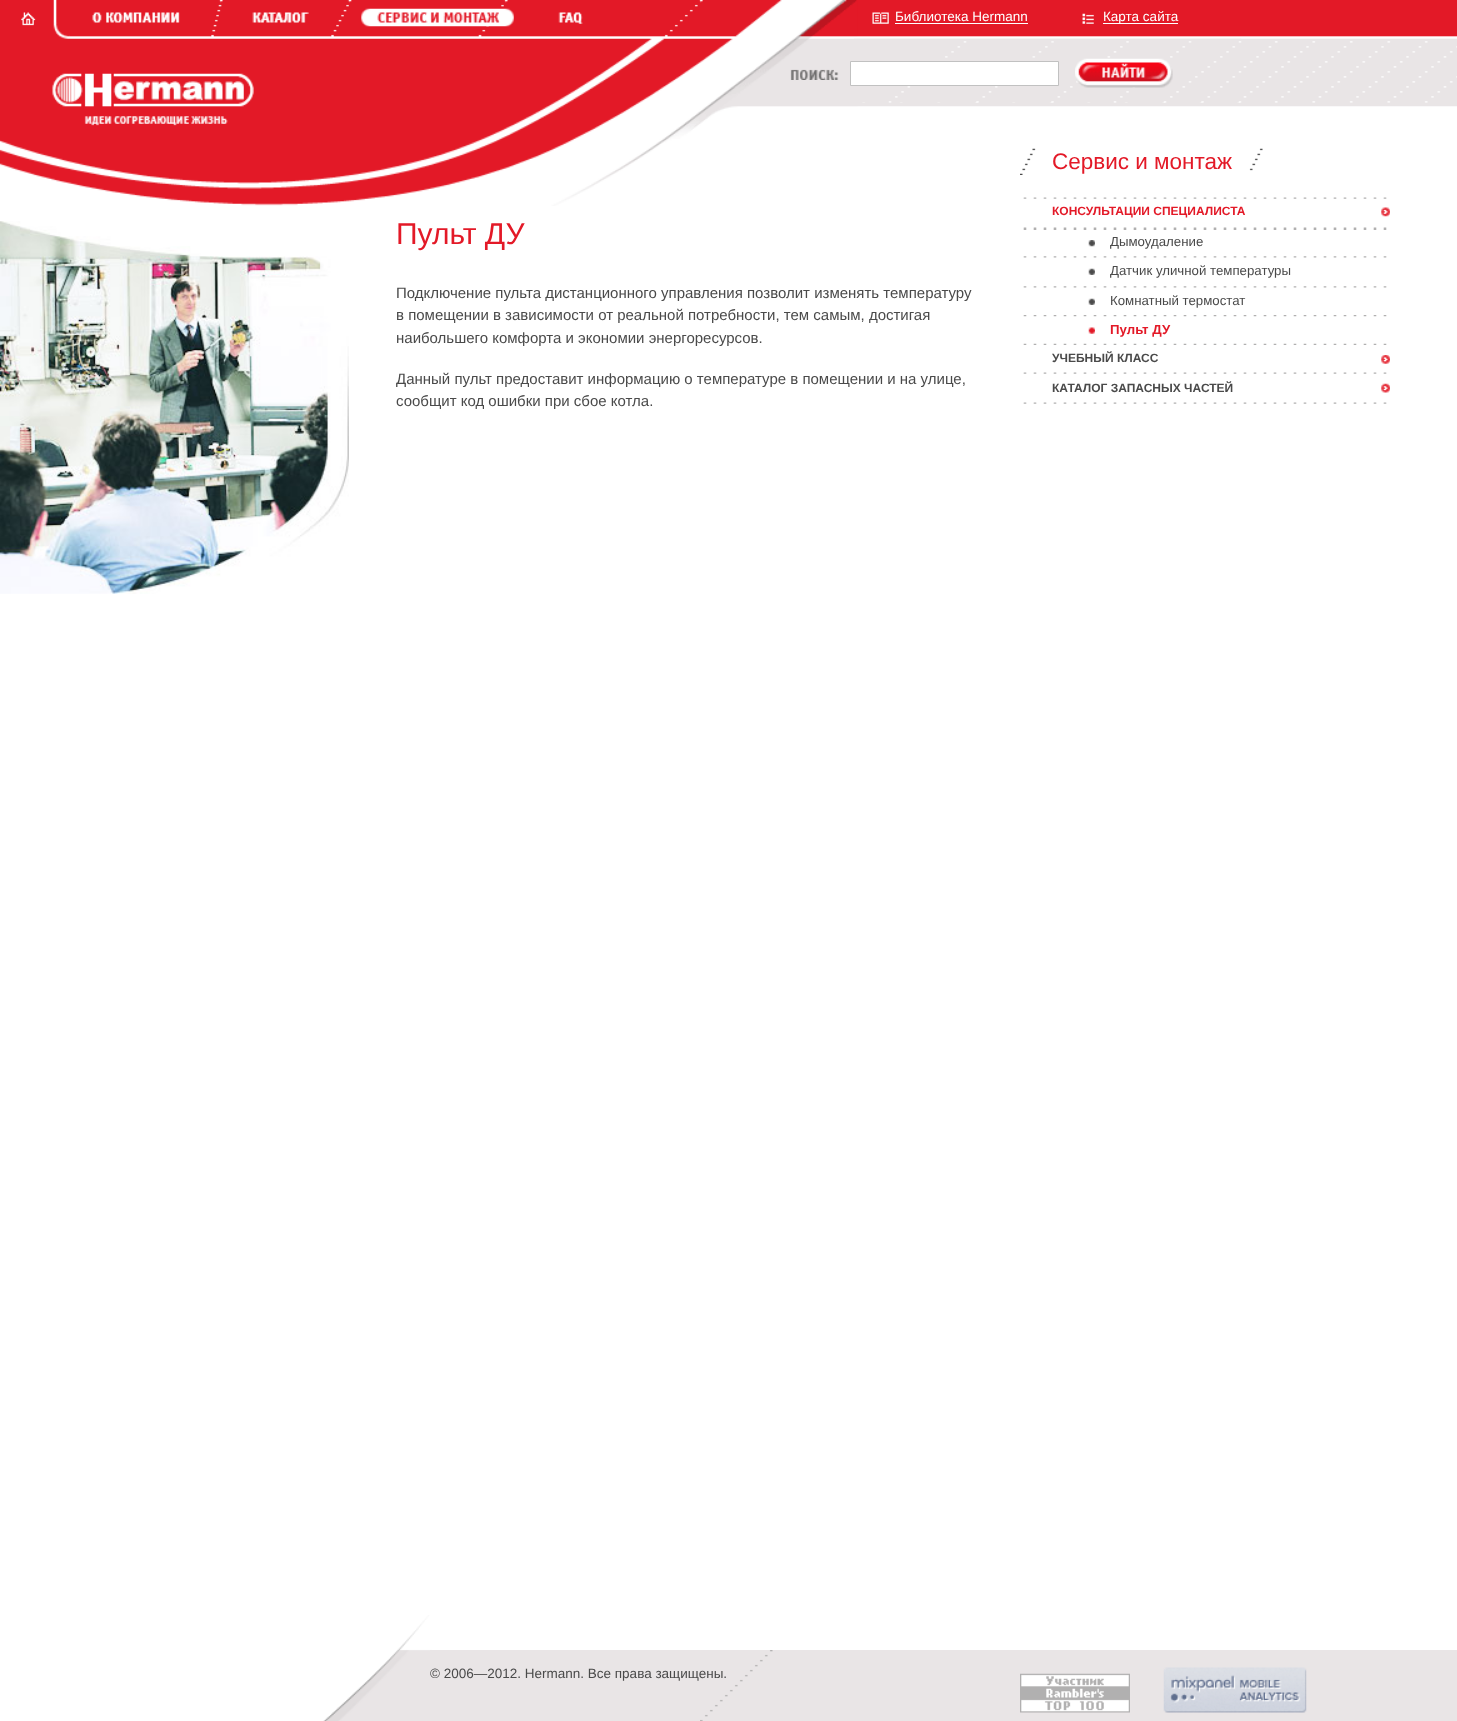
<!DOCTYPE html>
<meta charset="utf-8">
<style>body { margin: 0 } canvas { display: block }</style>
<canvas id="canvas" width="1457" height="1721"></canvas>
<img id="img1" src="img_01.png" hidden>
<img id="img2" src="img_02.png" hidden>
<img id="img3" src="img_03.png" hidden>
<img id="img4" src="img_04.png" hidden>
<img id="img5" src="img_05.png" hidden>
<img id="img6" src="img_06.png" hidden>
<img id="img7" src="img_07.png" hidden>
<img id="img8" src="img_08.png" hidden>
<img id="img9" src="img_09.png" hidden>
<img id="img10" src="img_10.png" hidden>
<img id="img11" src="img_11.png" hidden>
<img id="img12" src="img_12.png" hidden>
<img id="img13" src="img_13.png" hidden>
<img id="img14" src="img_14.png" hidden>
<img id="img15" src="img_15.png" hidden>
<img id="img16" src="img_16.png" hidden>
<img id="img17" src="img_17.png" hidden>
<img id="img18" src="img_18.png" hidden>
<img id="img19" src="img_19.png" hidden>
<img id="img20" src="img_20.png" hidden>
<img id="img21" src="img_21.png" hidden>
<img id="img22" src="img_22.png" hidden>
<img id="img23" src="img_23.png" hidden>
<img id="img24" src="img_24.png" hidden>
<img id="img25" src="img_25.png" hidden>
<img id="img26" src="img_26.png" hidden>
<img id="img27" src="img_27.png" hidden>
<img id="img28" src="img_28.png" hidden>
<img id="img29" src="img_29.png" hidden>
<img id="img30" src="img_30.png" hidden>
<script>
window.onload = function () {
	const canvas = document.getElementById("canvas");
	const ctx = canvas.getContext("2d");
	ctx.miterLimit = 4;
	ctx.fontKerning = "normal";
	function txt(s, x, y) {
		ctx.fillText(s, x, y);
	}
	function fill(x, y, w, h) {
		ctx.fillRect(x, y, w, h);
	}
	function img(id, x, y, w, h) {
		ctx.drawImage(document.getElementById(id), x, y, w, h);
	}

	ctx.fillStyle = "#FFFFFF";
	fill(0, 0, 1457, 1721);
	img("img1", 857, 0, 600, 107);
	img("img2", 0, 0, 858, 206);
	img("img3", 92, 12, 88, 11);
	img("img4", 252, 12, 57, 11);
	img("img5", 361, 8, 153, 19);
	img("img6", 558, 12, 25, 12);
	img("img7", 21, 12, 15, 14);
	img("img8", 872, 12, 17, 12);
	fill(895, 23, 133, 1);
	img("img9", 1082, 13, 12, 11);
	fill(1103, 23, 75, 1);
	img("img10", 854, 38, 388, 65);
	img("img11", 790, 69, 49, 11);
	ctx.beginPath();
	ctx.rect(850.5, 61.5, 208, 24);
	ctx.fill();
	ctx.strokeStyle = "#C1C1C1";
	ctx.stroke();
	img("img12", 1075, 58, 98, 30);
	img("img13", 0, 221, 349, 373);
	img("img14", 1020, 148, 16, 27);
	img("img15", 1249, 148, 14, 23);
	img("img16", 1023, 197, 364, 2);
	img("img17", 1023, 343, 364, 2);
	img("img18", 1381, 207, 9, 10);
	img("img19", 1023, 227, 364, 3);
	img("img20", 1088, 240, 7, 7);
	img("img21", 1023, 256, 364, 2);
	img("img22", 1088, 268, 7, 7);
	img("img21", 1023, 286, 364, 2);
	img("img22", 1088, 298, 7, 7);
	img("img23", 1023, 315, 364, 2);
	img("img24", 1088, 327, 7, 7);
	img("img16", 1023, 372, 364, 2);
	img("img25", 1381, 355, 9, 9);
	img("img16", 1023, 402, 364, 2);
	img("img26", 1381, 383, 9, 10);
	img("img27", 323, 1615, 110, 106);
	ctx.fillStyle = "#E9E5E6";
	fill(430, 1650, 1027, 71);
	img("img28", 700, 1650, 73, 71);
	img("img29", 1020, 1673, 110, 40);
	img("img30", 1163, 1667, 144, 46);
	ctx.font = "13.5px Liberation Sans";
	ctx.fillStyle = "#FFFFFF";
	txt("Библиотека Hermann", 895, 21);
	txt("Карта сайта", 1103, 21);
	ctx.font = "30px Liberation Sans";
	ctx.fillStyle = "#E31927";
	txt("Пульт ДУ", 396, 244);
	ctx.font = "15px Liberation Sans";
	ctx.fillStyle = "#4A4A4A";
	txt("Подключение пульта дистанционного управления позволит изменять температуру", 396, 298);
	txt("в помещении в зависимости от реальной потребности, тем самым, достигая", 396, 320);
	txt("наибольшего комфорта и экономии энергоресурсов.", 396, 343);
	txt("Данный пульт предоставит информацию о температуре в помещении и на улице,", 396, 384);
	txt("сообщит код ошибки при сбое котла.", 396, 406);
	ctx.font = "22.5px Liberation Sans";
	ctx.fillStyle = "#E31927";
	txt("Сервис и монтаж", 1052, 169);
	ctx.font = "bold 12px Liberation Sans";
	txt("КОНСУЛЬТАЦИИ СПЕЦИАЛИСТА", 1052, 215);
	ctx.font = "13.25px Liberation Sans";
	ctx.fillStyle = "#4A4A4A";
	txt("Дымоудаление", 1110, 246);
	txt("Датчик уличной температуры", 1110, 275);
	txt("Комнатный термостат", 1110, 305);
	ctx.font = "bold 13.25px Liberation Sans";
	ctx.fillStyle = "#E31927";
	txt("Пульт ДУ", 1110, 334);
	ctx.font = "bold 12px Liberation Sans";
	ctx.fillStyle = "#4A4A4A";
	txt("УЧЕБНЫЙ КЛАСС", 1052, 362);
	txt("КАТАЛОГ ЗАПАСНЫХ ЧАСТЕЙ", 1052, 392);
	ctx.font = "13.5px Liberation Sans";
	txt("© 2006—2012. Hermann. Все права защищены.", 430, 1678);
};
</script>
